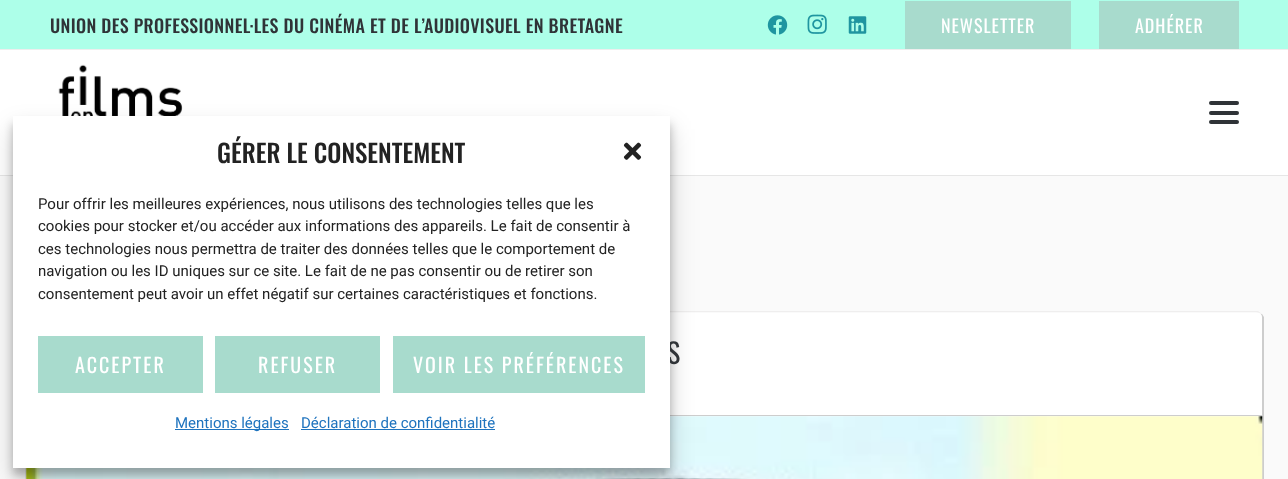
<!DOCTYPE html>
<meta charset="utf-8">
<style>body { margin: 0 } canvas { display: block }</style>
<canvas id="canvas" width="1288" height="479"></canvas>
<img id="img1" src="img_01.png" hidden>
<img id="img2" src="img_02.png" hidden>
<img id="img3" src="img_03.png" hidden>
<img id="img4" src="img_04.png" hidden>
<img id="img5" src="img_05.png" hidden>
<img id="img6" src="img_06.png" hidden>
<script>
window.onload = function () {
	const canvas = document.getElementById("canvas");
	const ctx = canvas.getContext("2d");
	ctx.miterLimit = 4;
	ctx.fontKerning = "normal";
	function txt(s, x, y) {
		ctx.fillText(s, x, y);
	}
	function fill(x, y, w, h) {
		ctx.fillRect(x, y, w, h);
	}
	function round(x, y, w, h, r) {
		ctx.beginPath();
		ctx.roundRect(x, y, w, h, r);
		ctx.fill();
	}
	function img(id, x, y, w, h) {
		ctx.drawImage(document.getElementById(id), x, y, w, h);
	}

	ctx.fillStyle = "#FAFAFA";
	fill(0, 0, 1288, 479);
	ctx.fillStyle = "#ADFFE9";
	fill(0, 0, 1288, 49);
	ctx.fillStyle = "#EEEEEE";
	fill(0, 49, 1288, 1);
	img("img1", 767, 15, 21, 20);
	img("img2", 807, 14, 20, 20);
	img("img3", 848, 16, 19, 18);
	ctx.fillStyle = "#A8DBCD";
	fill(905, 1, 166, 48);
	fill(1099, 1, 140, 48);
	ctx.fillStyle = "#E6E6E6";
	ctx.beginPath();
	ctx.moveTo(0, 175);
	ctx.lineTo(0, 176);
	ctx.lineTo(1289, 176);
	ctx.lineTo(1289, 51);
	ctx.lineTo(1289, 175);
	ctx.closePath();
	ctx.fill();
	ctx.fillStyle = "#FFFFFF";
	fill(0, 50, 1288, 125);
	img("img4", 58, 64, 125, 52);
	ctx.fillStyle = "#2F3337";
	round(1209, 111, 30, 4, 2);
	round(1209, 101, 30, 4, 2);
	round(1209, 120, 30, 4, 2);
	ctx.fillStyle = "#EFEEEE";
	ctx.beginPath();
	ctx.moveTo(1258, 311);
	ctx.lineTo(30, 311);
	ctx.bezierCurveTo(27, 312, 25, 315, 25, 319);
	ctx.bezierCurveTo(25, 315, 28, 312, 32, 312);
	ctx.lineTo(1256, 312);
	ctx.bezierCurveTo(1258, 312, 1260, 313, 1261, 314);
	ctx.lineTo(1262, 314);
	ctx.closePath();
	ctx.fill();
	ctx.fillStyle = "#CDCDCD";
	ctx.beginPath();
	ctx.moveTo(1262, 314);
	ctx.lineTo(1261, 314);
	ctx.bezierCurveTo(1262, 316, 1262, 317, 1262, 319);
	ctx.lineTo(1262, 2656);
	ctx.bezierCurveTo(1262, 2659, 1261, 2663, 1258, 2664);
	ctx.bezierCurveTo(1261, 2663, 1263, 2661, 1264, 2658);
	ctx.lineTo(1264, 317);
	ctx.bezierCurveTo(1263, 316, 1263, 315, 1262, 314);
	ctx.closePath();
	ctx.fill();
	ctx.fillStyle = "#FFFFFF";
	ctx.beginPath();
	ctx.moveTo(25, 319);
	ctx.lineTo(25, 416);
	ctx.lineTo(1262, 416);
	ctx.lineTo(1262, 319);
	ctx.bezierCurveTo(1262, 316, 1261, 314, 1259, 313);
	ctx.lineTo(30, 313);
	ctx.bezierCurveTo(27, 314, 25, 316, 25, 319);
	ctx.closePath();
	ctx.fill();
	ctx.fillStyle = "#CDCDCD";
	fill(670, 415, 592, 1);
	ctx.fillStyle = "#E5E5E5";
	ctx.beginPath();
	ctx.moveTo(25, 416);
	ctx.lineTo(25, 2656);
	ctx.lineTo(26, 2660);
	ctx.lineTo(26, 416);
	ctx.closePath();
	ctx.fill();
	img("img5", 26, 416, 1237, 63);
	ctx.fillStyle = "rgba(0, 0, 0, 0.23)";
	ctx.filter = "blur(4px)";
	ctx.beginPath();
	ctx.rect(13, 124, 657, 351);
	ctx.fill();
	ctx.filter = "none";
	ctx.fillStyle = "rgba(0, 0, 0, 0.19)";
	ctx.filter = "blur(12.5px)";
	ctx.beginPath();
	ctx.rect(13, 129, 657, 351);
	ctx.fill();
	ctx.filter = "none";
	ctx.letterSpacing = "0.35px";
	ctx.font = "500 18px Oswald";
	ctx.fillStyle = "#2F3337";
	txt("UNION DES PROFESSIONNEL·LES DU CINÉMA ET DE L’AUDIOVISUEL EN BRETAGNE", 50, 33);
	ctx.letterSpacing = "1px";
	ctx.font = "18px Oswald";
	ctx.fillStyle = "#FFFFFF";
	txt("NEWSLETTER", 941, 33);
	txt("ADHÉRER", 1135, 33);
	ctx.letterSpacing = "0px";
	ctx.font = "28px Oswald";
	ctx.fillStyle = "#2F3337";
	txt("S", 667, 364);
	ctx.fillStyle = "#FFFFFF";
	fill(13, 116, 657, 352);
	ctx.font = "500 25px Oswald";
	ctx.fillStyle = "#222222";
	txt("GÉRER LE CONSENTEMENT", 217, 163);
	img("img6", 623, 142, 19, 18);
	ctx.font = "15px Roboto";
	txt("Pour offrir les meilleures expériences, nous utilisons des technologies telles que les", 38, 209);
	txt("cookies pour stocker et/ou accéder aux informations des appareils. Le fait de consentir à", 38, 231);
	txt("ces technologies nous permettra de traiter des données telles que le comportement de", 38, 254);
	txt("navigation ou les ID uniques sur ce site. Le fait de ne pas consentir ou de retirer son", 38, 276);
	txt("consentement peut avoir un effet négatif sur certaines caractéristiques et fonctions.", 38, 299);
	ctx.fillStyle = "#A8DBCD";
	fill(38, 336, 165, 57);
	ctx.letterSpacing = "2px";
	ctx.font = "20px Oswald";
	ctx.fillStyle = "#FFFFFF";
	txt("ACCEPTER", 75, 373);
	ctx.fillStyle = "#A8DBCD";
	fill(215, 336, 165, 57);
	ctx.fillStyle = "#FFFFFF";
	txt("REFUSER", 258, 373);
	ctx.fillStyle = "#A8DBCD";
	fill(393, 336, 252, 57);
	ctx.fillStyle = "#FFFFFF";
	txt("VOIR LES PRÉFÉRENCES", 413, 373);
	ctx.fillStyle = "#1E73BE";
	fill(175, 429, 114, 1);
	ctx.letterSpacing = "0px";
	ctx.font = "15px Roboto";
	txt("Mentions légales", 175, 428);
	txt("Déclaration de confidentialité", 301, 428);
	fill(301, 429, 194, 1);
};
</script>
